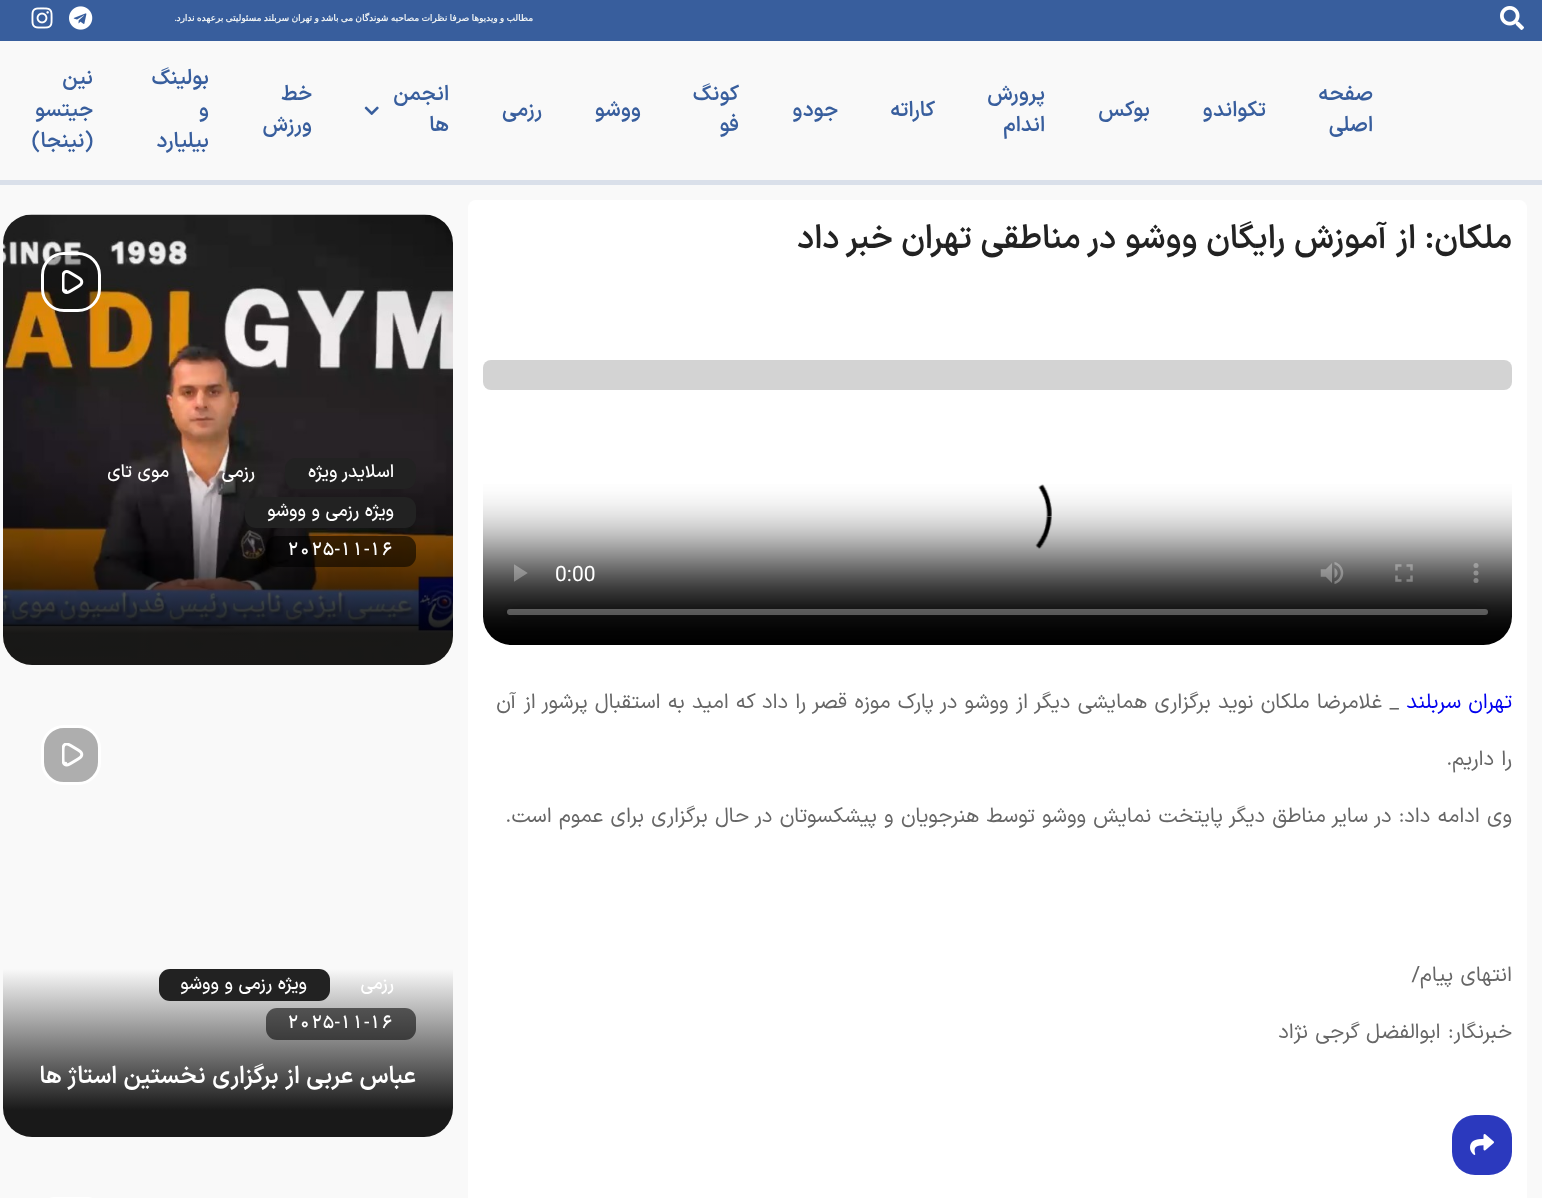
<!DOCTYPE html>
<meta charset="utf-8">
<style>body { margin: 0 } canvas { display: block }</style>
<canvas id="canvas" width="1542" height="1198"></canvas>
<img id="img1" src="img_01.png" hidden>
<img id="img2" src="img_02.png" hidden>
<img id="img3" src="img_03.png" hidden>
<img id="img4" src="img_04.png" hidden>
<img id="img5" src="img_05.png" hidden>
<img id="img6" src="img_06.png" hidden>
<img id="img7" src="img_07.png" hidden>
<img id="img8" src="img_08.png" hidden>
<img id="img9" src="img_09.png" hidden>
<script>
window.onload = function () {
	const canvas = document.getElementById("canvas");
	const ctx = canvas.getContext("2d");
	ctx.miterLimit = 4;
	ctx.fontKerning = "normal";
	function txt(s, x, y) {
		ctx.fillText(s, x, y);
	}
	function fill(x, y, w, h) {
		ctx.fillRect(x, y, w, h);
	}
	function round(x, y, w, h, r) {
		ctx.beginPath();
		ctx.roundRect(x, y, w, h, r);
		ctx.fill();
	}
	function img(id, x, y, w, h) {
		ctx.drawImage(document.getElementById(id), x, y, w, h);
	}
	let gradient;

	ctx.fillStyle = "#F9F9F9";
	fill(0, 0, 1542, 1198);
	ctx.fillStyle = "#385E9D";
	fill(0, 0, 1542, 41);
	img("img1", 1500, 6, 24, 24);
	img("img2", 69, 6, 24, 24);
	img("img3", 31, 7, 22, 22);
	ctx.fillStyle = "#DAE0EA";
	fill(0, 180, 1542, 5);
	img("img4", 364, 106, 15, 9);
	ctx.fillStyle = "#FFFFFF";
	round(468, 200, 1059, 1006, 8);
	ctx.fillStyle = "#D3D3D3";
	round(483, 360, 1029, 30, 8);
	img("img5", 483, 484, 1029, 161);
	ctx.fillStyle = "#2B39BE";
	round(1452, 1115, 60, 60, 23);
	img("img6", 1470, 1134, 24, 21);
	img("img7", 3, 214, 450, 451);
	ctx.fillStyle = "rgba(0, 0, 0, 0.3)";
	ctx.beginPath();
	ctx.roundRect(42.5, 253.5, 57, 57, 21.5);
	ctx.fill();
	ctx.strokeStyle = "#FFFFFF";
	ctx.lineWidth = 3;
	ctx.stroke();
	img("img8", 62, 270, 22, 24);
	gradient = ctx.createLinearGradient(228, 420, 228, 665);
	gradient.addColorStop(0, "rgba(255, 255, 255, 0)");
	gradient.addColorStop(0.18, "rgba(0, 0, 0, 0)");
	gradient.addColorStop(0.87, "rgba(0, 0, 0, 0.9)");
	gradient.addColorStop(1, "rgba(0, 0, 0, 0.9)");
	ctx.fillStyle = gradient;
	round(3, 420, 450, 245, 29);
	ctx.fillStyle = "#222222";
	round(285, 458, 131, 31, 11);
	round(245, 497, 171, 31, 11);
	ctx.fillStyle = "rgba(0, 0, 0, 0.56)";
	round(266, 536, 150, 31, 11);
	ctx.fillStyle = "#AEAEAE";
	ctx.beginPath();
	ctx.roundRect(42.5, 726.5, 57, 57, 21.5);
	ctx.fill();
	ctx.stroke();
	img("img9", 62, 743, 22, 24);
	gradient = ctx.createLinearGradient(228, 932, 228, 1137);
	gradient.addColorStop(0, "#F9F9F9");
	gradient.addColorStop(0.18, "#F9F9F9");
	gradient.addColorStop(0.87, "#191919");
	gradient.addColorStop(1, "#191919");
	ctx.fillStyle = gradient;
	round(3, 932, 450, 205, 29);
	ctx.fillStyle = "#222222";
	round(159, 969, 171, 32, 11);
	ctx.fillStyle = "rgba(0, 0, 0, 0.56)";
	round(266, 1008, 150, 32, 11);
	ctx.beginPath();
	ctx.roundRect(42.5, 1198.5, 57, 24, 21.5);
	ctx.stroke();
	ctx.wordSpacing = "-0.6px";
	ctx.direction = "rtl";
	ctx.font = "bold 9px DejaVu Sans";
	ctx.fillStyle = "#EFF3F4";
	txt("مطالب و ویدیوها صرفا نظرات مصاحبه شوندگان می باشد و تهران سربلند مسئولیتی برعهده ندارد", 533, 21);
	ctx.wordSpacing = "0px";
	ctx.font = "600 9px Roboto";
	txt(".", 177, 21);
	ctx.font = "600 21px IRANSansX";
	ctx.fillStyle = "#385E9D";
	txt("صفحه", 1373, 100);
	txt("اصلی", 1373, 131);
	txt("تکواندو", 1266, 116);
	txt("بوکس", 1150, 116);
	txt("پرورش", 1045, 100);
	txt("اندام", 1045, 131);
	txt("کاراته", 935, 116);
	txt("جودو", 838, 116);
	txt("کونگ", 739, 100);
	txt("فو", 739, 131);
	txt("ووشو", 641, 116);
	txt("رزمی", 542, 116);
	txt("انجمن", 449, 100);
	txt("ها", 449, 131);
	txt("خط", 312, 100);
	txt("ورزش", 312, 131);
	txt("بولینگ", 209, 84);
	txt("و", 209, 116);
	txt("بیلیارد", 209, 147);
	txt("نین", 93, 84);
	txt("جیتسو", 93, 116);
	txt("(نینجا)", 93, 147);
	ctx.font = "600 33px IRANSansX";
	ctx.fillStyle = "#222222";
	txt("ملکان: از آموزش رایگان ووشو در مناطقی تهران خبر داد", 1512, 248);
	ctx.font = "21px IRANSansX";
	ctx.fillStyle = "#0000EE";
	txt("تهران سربلند", 1512, 708);
	ctx.fillStyle = "#666666";
	txt("_ غلامرضا ملکان نوید برگزاری همایشی دیگر از ووشو در پارک موزه قصر را داد که امید به استقبال پرشور از آن", 1399, 708);
	txt("را داریم.", 1512, 765);
	txt("وی ادامه داد: در سایر مناطق دیگر پایتخت نمایش ووشو توسط هنرجویان و پیشکسوتان در حال برگزاری برای عموم است.", 1512, 822);
	txt("انتهای پیام/", 1512, 981);
	txt("خبرنگار: ابوالفضل گرجی نژاد", 1512, 1038);
	ctx.font = "500 18px IRANSansX";
	ctx.fillStyle = "#FFFFFF";
	txt("اسلایدر ویژه", 394, 477);
	txt("رزمی", 255, 477);
	txt("موی تای", 169, 477);
	txt("ویژه رزمی و ووشو", 394, 516);
	ctx.direction = "ltr";
	txt("2025-11-16", 287, 555);
	ctx.direction = "rtl";
	txt("رزمی", 394, 989);
	txt("ویژه رزمی و ووشو", 307, 989);
	ctx.direction = "ltr";
	txt("2025-11-16", 287, 1028);
	ctx.save();
	ctx.beginPath();
	ctx.rect(41, 1055, 375, 45);
	ctx.clip();
	ctx.direction = "rtl";
	ctx.font = "600 24px IRANSansX";
	txt("عباس عربی از برگزاری نخستین استاژ هاپکیدو", 416, 1083);
	ctx.restore();
};
</script>
